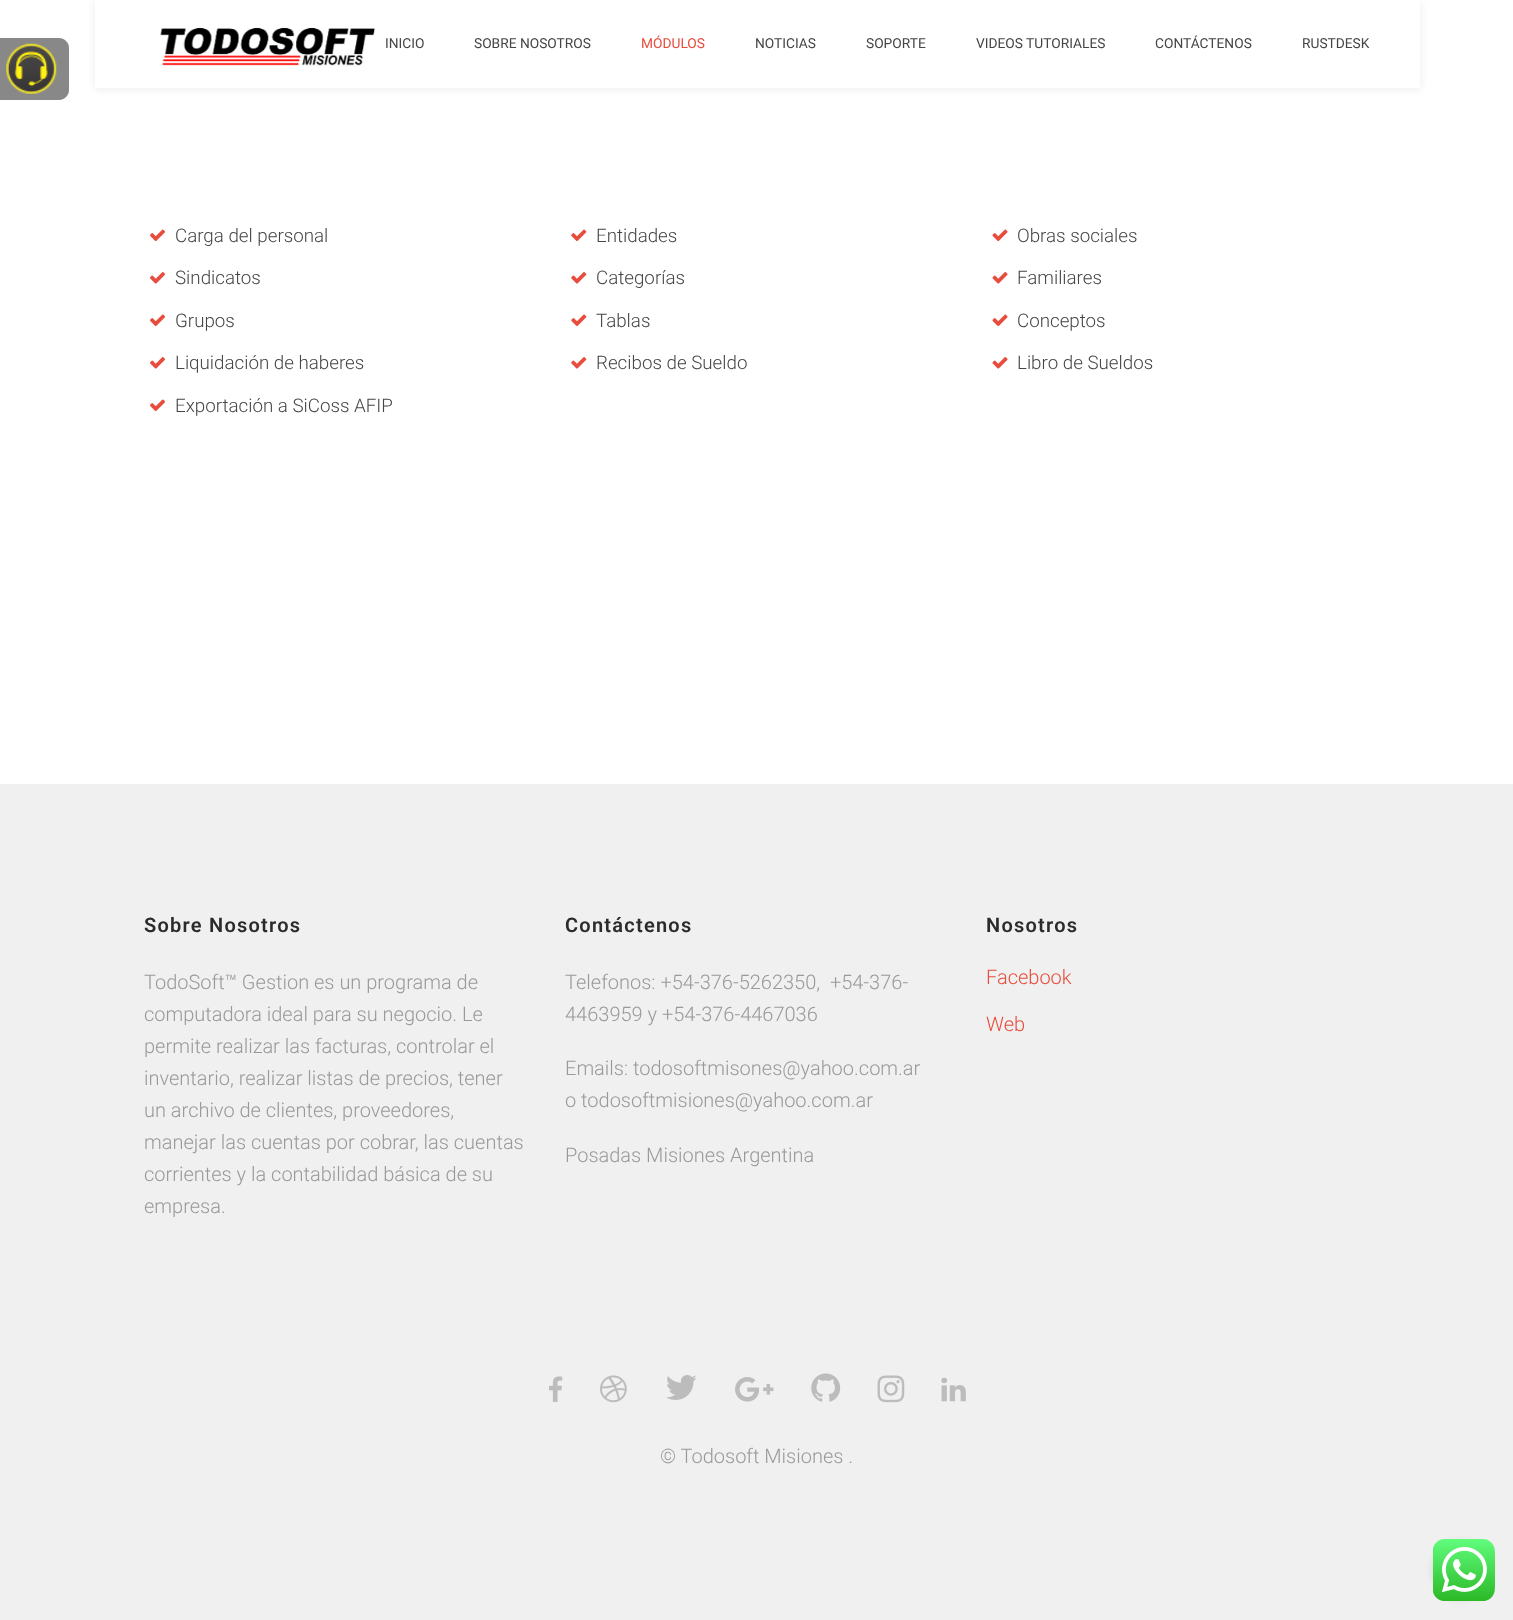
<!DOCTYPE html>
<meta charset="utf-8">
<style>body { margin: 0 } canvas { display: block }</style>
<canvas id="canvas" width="1513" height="1620"></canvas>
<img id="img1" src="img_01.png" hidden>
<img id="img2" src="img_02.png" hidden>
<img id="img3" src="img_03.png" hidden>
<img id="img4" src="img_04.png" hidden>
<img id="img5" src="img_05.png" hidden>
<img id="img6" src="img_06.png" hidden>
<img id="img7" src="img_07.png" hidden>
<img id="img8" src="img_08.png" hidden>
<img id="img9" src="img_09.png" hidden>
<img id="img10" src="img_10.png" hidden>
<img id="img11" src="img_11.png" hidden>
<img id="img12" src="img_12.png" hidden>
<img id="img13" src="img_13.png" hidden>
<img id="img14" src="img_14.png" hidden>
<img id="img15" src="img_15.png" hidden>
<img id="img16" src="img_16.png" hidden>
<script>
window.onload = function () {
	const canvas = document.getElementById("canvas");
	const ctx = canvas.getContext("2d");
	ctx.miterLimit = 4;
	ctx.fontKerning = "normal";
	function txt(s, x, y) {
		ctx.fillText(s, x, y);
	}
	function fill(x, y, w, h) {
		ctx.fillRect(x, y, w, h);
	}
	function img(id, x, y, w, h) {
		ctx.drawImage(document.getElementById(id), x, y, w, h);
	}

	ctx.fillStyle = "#FFFFFF";
	fill(0, 0, 1513, 1620);
	ctx.fillStyle = "#898888";
	ctx.beginPath();
	ctx.moveTo(-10, 38);
	ctx.lineTo(59, 38);
	ctx.bezierCurveTo(64.5, 38, 69, 42.5, 69, 48);
	ctx.lineTo(69, 90);
	ctx.bezierCurveTo(69, 95.5, 64.5, 100, 59, 100);
	ctx.lineTo(-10, 100);
	ctx.closePath();
	ctx.fill();
	img("img1", 6, 43, 51, 51);
	ctx.fillStyle = "rgba(0, 0, 0, 0.08)";
	ctx.filter = "blur(4px)";
	ctx.beginPath();
	ctx.rect(95, 1, 1325, 88);
	ctx.fill();
	ctx.filter = "none";
	ctx.fillStyle = "#FFFFFF";
	fill(95, 0, 1325, 88);
	img("img2", 160, 27, 216, 39);
	img("img3", 150, 229, 15, 13);
	img("img4", 150, 272, 15, 12);
	img("img3", 150, 314, 15, 13);
	img("img4", 150, 357, 15, 12);
	img("img3", 150, 399, 15, 13);
	img("img5", 571, 229, 16, 13);
	img("img6", 571, 272, 16, 12);
	img("img5", 571, 314, 16, 13);
	img("img6", 571, 357, 16, 12);
	img("img7", 992, 229, 16, 13);
	img("img8", 992, 272, 16, 12);
	img("img7", 992, 314, 16, 13);
	img("img8", 992, 357, 16, 12);
	ctx.fillStyle = "#F0F0F0";
	fill(0, 784, 1513, 836);
	img("img9", 549, 1376, 14, 26);
	img("img10", 600, 1375, 27, 28);
	img("img11", 666, 1375, 31, 25);
	img("img12", 735, 1377, 39, 25);
	img("img13", 811, 1373, 30, 29);
	img("img14", 877, 1375, 28, 28);
	img("img15", 941, 1377, 25, 25);
	ctx.fillStyle = "rgba(0, 0, 0, 0.16)";
	ctx.filter = "blur(4.5px)";
	ctx.beginPath();
	ctx.roundRect(1434, 1543, 55, 55, 27.5);
	ctx.fill();
	ctx.filter = "none";
	img("img16", 1433, 1539, 62, 62);
	ctx.font = "13.75px Roboto";
	ctx.fillStyle = "#454545";
	txt("INICIO", 385, 48);
	txt("SOBRE NOSOTROS", 474, 48);
	ctx.fillStyle = "#E74C3C";
	txt("MÓDULOS", 641, 48);
	ctx.fillStyle = "#454545";
	txt("NOTICIAS", 755, 48);
	txt("SOPORTE", 866, 48);
	txt("VIDEOS TUTORIALES", 976, 48);
	txt("CONTÁCTENOS", 1155, 48);
	txt("RUSTDESK", 1302, 48);
	ctx.font = "300 18.75px Roboto";
	txt("Carga del personal", 175, 242);
	txt("Sindicatos", 175, 284);
	txt("Grupos", 175, 327);
	txt("Liquidación de haberes", 175, 369);
	txt("Exportación a SiCoss AFIP", 175, 412);
	txt("Entidades", 596, 242);
	txt("Categorías", 596, 284);
	txt("Tablas", 596, 327);
	txt("Recibos de Sueldo", 596, 369);
	txt("Obras sociales", 1017, 242);
	txt("Familiares", 1017, 284);
	txt("Conceptos", 1017, 327);
	txt("Libro de Sueldos", 1017, 369);
	ctx.letterSpacing = "1.25px";
	ctx.font = "600 20px Roboto";
	ctx.fillStyle = "#2B2B2B";
	txt("Sobre Nosotros", 144, 932);
	ctx.letterSpacing = "0px";
	ctx.font = "300 20px Roboto";
	ctx.fillStyle = "#999999";
	txt("TodoSoft™ Gestion es un programa de", 144, 989);
	txt("computadora ideal para su negocio. Le", 144, 1021);
	txt("permite realizar las facturas, controlar el", 144, 1053);
	txt("inventario, realizar listas de precios, tener", 144, 1085);
	txt("un archivo de clientes, proveedores,", 144, 1117);
	txt("manejar las cuentas por cobrar, las cuentas", 144, 1149);
	txt("corrientes y la contabilidad básica de su", 144, 1181);
	txt("empresa.", 144, 1213);
	ctx.letterSpacing = "1.25px";
	ctx.font = "600 20px Roboto";
	ctx.fillStyle = "#2B2B2B";
	txt("Contáctenos", 565, 932);
	ctx.letterSpacing = "0px";
	ctx.font = "300 20px Roboto";
	ctx.fillStyle = "#999999";
	txt("Telefonos: +54-376-5262350,  +54-376-", 565, 989);
	txt("4463959 y +54-376-4467036", 565, 1021);
	txt("Emails: todosoftmisones@yahoo.com.ar", 565, 1075);
	txt("o todosoftmisiones@yahoo.com.ar", 565, 1107);
	txt("Posadas Misiones Argentina", 565, 1162);
	ctx.letterSpacing = "1.25px";
	ctx.font = "600 20px Roboto";
	ctx.fillStyle = "#2B2B2B";
	txt("Nosotros", 986, 932);
	ctx.letterSpacing = "0px";
	ctx.font = "300 20px Roboto";
	ctx.fillStyle = "#E74C3C";
	txt("Facebook", 986, 984);
	txt("Web", 986, 1031);
	ctx.fillStyle = "#999999";
	txt("© Todosoft Misiones .", 660, 1463);
};
</script>
